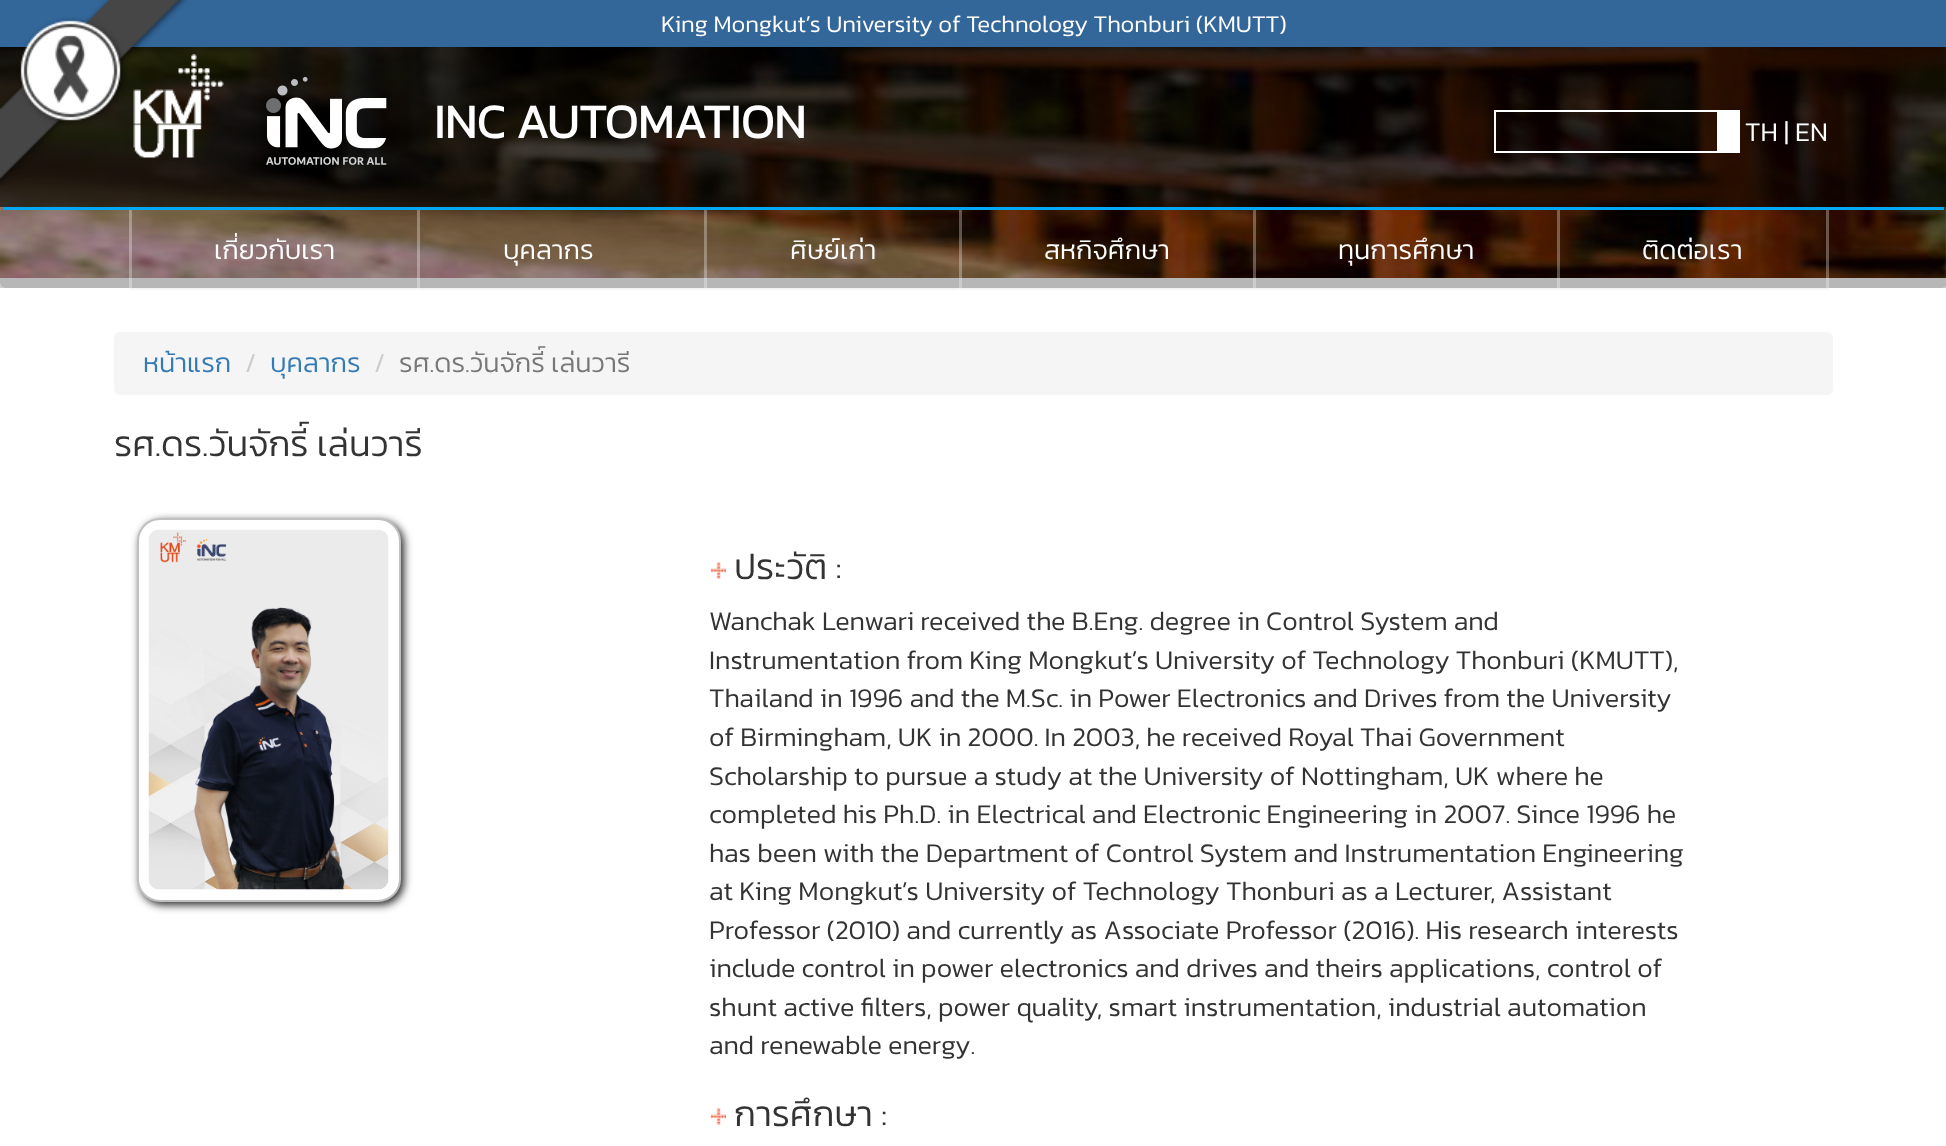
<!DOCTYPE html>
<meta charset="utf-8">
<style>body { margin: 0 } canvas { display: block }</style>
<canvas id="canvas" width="1946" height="1146"></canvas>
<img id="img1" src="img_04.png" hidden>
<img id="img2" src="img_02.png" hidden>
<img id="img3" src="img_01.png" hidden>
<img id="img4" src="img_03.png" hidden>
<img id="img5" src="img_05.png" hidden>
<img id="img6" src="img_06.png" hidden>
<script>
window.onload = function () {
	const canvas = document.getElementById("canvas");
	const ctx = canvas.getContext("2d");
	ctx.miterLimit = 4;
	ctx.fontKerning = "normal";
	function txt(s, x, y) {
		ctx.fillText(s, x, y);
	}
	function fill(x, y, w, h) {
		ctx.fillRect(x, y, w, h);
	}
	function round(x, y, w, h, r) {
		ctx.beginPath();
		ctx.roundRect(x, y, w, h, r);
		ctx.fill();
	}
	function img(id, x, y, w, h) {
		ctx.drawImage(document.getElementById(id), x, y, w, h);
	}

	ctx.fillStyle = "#FFFFFF";
	fill(0, 0, 1946, 1146);
	ctx.fillStyle = "#CCCCCC";
	fill(0, 47, 1946, 241);
	ctx.fillStyle = "#336699";
	fill(0, 0, 1946, 47);
	img("img1", 0, 47, 1946, 231);
	ctx.fillStyle = "rgba(0, 0, 0, 0.65)";
	fill(0, 47, 1946, 160);
	img("img2", 133, 54, 91, 104);
	img("img3", 0, 0, 188, 185);
	img("img4", 266, 76, 121, 89);
	ctx.strokeStyle = "#FFFFFF";
	ctx.lineWidth = 2;
	ctx.strokeRect(1495, 111, 223, 41);
	ctx.fillStyle = "#FFFFFF";
	fill(1719, 110, 21, 43);
	ctx.fillStyle = "rgba(0, 0, 0, 0.1)";
	round(0, 207, 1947, 81, 6);
	ctx.fillStyle = "#03A9F4";
	fill(3, 207, 1941, 3);
	ctx.save();
	ctx.beginPath();
	ctx.rect(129, 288, 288, 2);
	ctx.clip();
	ctx.fillStyle = "rgba(0, 0, 0, 0.05)";
	ctx.filter = "blur(1px)";
	ctx.beginPath();
	ctx.rect(129, 212, 288, 78);
	ctx.fill();
	ctx.filter = "none";
	ctx.restore();
	ctx.fillStyle = "rgba(255, 255, 255, 0.3)";
	fill(129, 210, 3, 78);
	ctx.save();
	ctx.beginPath();
	ctx.rect(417, 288, 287, 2);
	ctx.clip();
	ctx.fillStyle = "rgba(0, 0, 0, 0.05)";
	ctx.filter = "blur(1px)";
	ctx.beginPath();
	ctx.rect(417, 212, 287, 78);
	ctx.fill();
	ctx.filter = "none";
	ctx.restore();
	fill(417, 210, 3, 78);
	ctx.save();
	ctx.beginPath();
	ctx.rect(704, 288, 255, 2);
	ctx.clip();
	ctx.fillStyle = "rgba(0, 0, 0, 0.05)";
	ctx.filter = "blur(1px)";
	ctx.beginPath();
	ctx.rect(704, 212, 255, 78);
	ctx.fill();
	ctx.filter = "none";
	ctx.restore();
	fill(704, 210, 3, 78);
	ctx.save();
	ctx.beginPath();
	ctx.rect(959, 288, 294, 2);
	ctx.clip();
	ctx.fillStyle = "rgba(0, 0, 0, 0.05)";
	ctx.filter = "blur(1px)";
	ctx.beginPath();
	ctx.rect(959, 212, 294, 78);
	ctx.fill();
	ctx.filter = "none";
	ctx.restore();
	fill(959, 210, 3, 78);
	ctx.save();
	ctx.beginPath();
	ctx.rect(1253, 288, 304, 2);
	ctx.clip();
	ctx.fillStyle = "rgba(0, 0, 0, 0.05)";
	ctx.filter = "blur(1px)";
	ctx.beginPath();
	ctx.rect(1253, 212, 304, 78);
	ctx.fill();
	ctx.filter = "none";
	ctx.restore();
	fill(1253, 210, 3, 78);
	ctx.save();
	ctx.beginPath();
	ctx.rect(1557, 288, 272, 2);
	ctx.clip();
	ctx.fillStyle = "rgba(0, 0, 0, 0.05)";
	ctx.filter = "blur(1px)";
	ctx.beginPath();
	ctx.rect(1557, 212, 272, 78);
	ctx.fill();
	ctx.filter = "none";
	ctx.restore();
	fill(1826, 210, 3, 78);
	fill(1557, 210, 3, 78);
	ctx.fillStyle = "#F5F5F5";
	round(114, 332, 1719, 63, 6);
	ctx.fillStyle = "#282828";
	ctx.filter = "blur(4px)";
	ctx.beginPath();
	ctx.roundRect(140, 521, 264, 384, 23);
	ctx.fill();
	ctx.filter = "none";
	ctx.fillStyle = "#FFFFFF";
	ctx.beginPath();
	ctx.roundRect(138, 519, 262, 382, 22);
	ctx.fill();
	ctx.strokeStyle = "#C0C0C0";
	ctx.stroke();
	img("img5", 148, 529, 241, 361);
	img("img6", 710, 562, 16, 17);
	img("img6", 710, 1108, 16, 17);
	ctx.font = "300 24px Kanit";
	txt("King Mongkut’s University of Technology Thonburi (KMUTT)", 661, 32);
	ctx.font = "bold 48px Kanit";
	txt("INC AUTOMATION", 434, 138);
	ctx.font = "300 27px Kanit";
	txt("TH | EN", 1745, 141);
	txt("เกี่ยวกับเรา", 214, 259);
	txt("บุคลากร", 503, 259);
	txt("ศิษย์เก่า", 790, 259);
	txt("สหกิจศึกษา", 1044, 259);
	txt("ทุนการศึกษา", 1338, 259);
	txt("ติดต่อเรา", 1642, 259);
	ctx.fillStyle = "#337AB7";
	txt("หน้าแรก", 143, 372);
	ctx.fillStyle = "#CCCCCC";
	txt("/", 245, 372);
	ctx.fillStyle = "#337AB7";
	txt("บุคลากร", 270, 372);
	ctx.fillStyle = "#CCCCCC";
	txt("/", 374, 372);
	ctx.fillStyle = "#777777";
	txt("รศ.ดร.วันจักรี์ เล่นวารี", 399, 372);
	ctx.font = "300 36px Kanit";
	ctx.fillStyle = "#333333";
	txt("รศ.ดร.วันจักรี์ เล่นวารี", 114, 456);
	txt("ประวัติ :", 734, 579);
	ctx.font = "300 27px Kanit";
	txt("Wanchak Lenwari received the B.Eng. degree in Control System and", 709, 630);
	txt("Instrumentation from King Mongkut’s University of Technology Thonburi (KMUTT),", 709, 669);
	txt("Thailand in 1996 and the M.Sc. in Power Electronics and Drives from the University", 709, 707);
	txt("of Birmingham, UK in 2000. In 2003, he received Royal Thai Government", 709, 746);
	txt("Scholarship to pursue a study at the University of Nottingham, UK where he", 709, 785);
	txt("completed his Ph.D. in Electrical and Electronic Engineering in 2007. Since 1996 he", 709, 823);
	txt("has been with the Department of Control System and Instrumentation Engineering", 709, 862);
	txt("at King Mongkut’s University of Technology Thonburi as a Lecturer, Assistant", 709, 900);
	txt("Professor (2010) and currently as Associate Professor (2016). His research interests", 709, 939);
	txt("include control in power electronics and drives and theirs applications, control of", 709, 977);
	txt("shunt active filters, power quality, smart instrumentation, industrial automation", 709, 1016);
	txt("and renewable energy.", 709, 1054);
	ctx.font = "300 36px Kanit";
	txt("การศึกษา :", 734, 1126);
};
</script>
